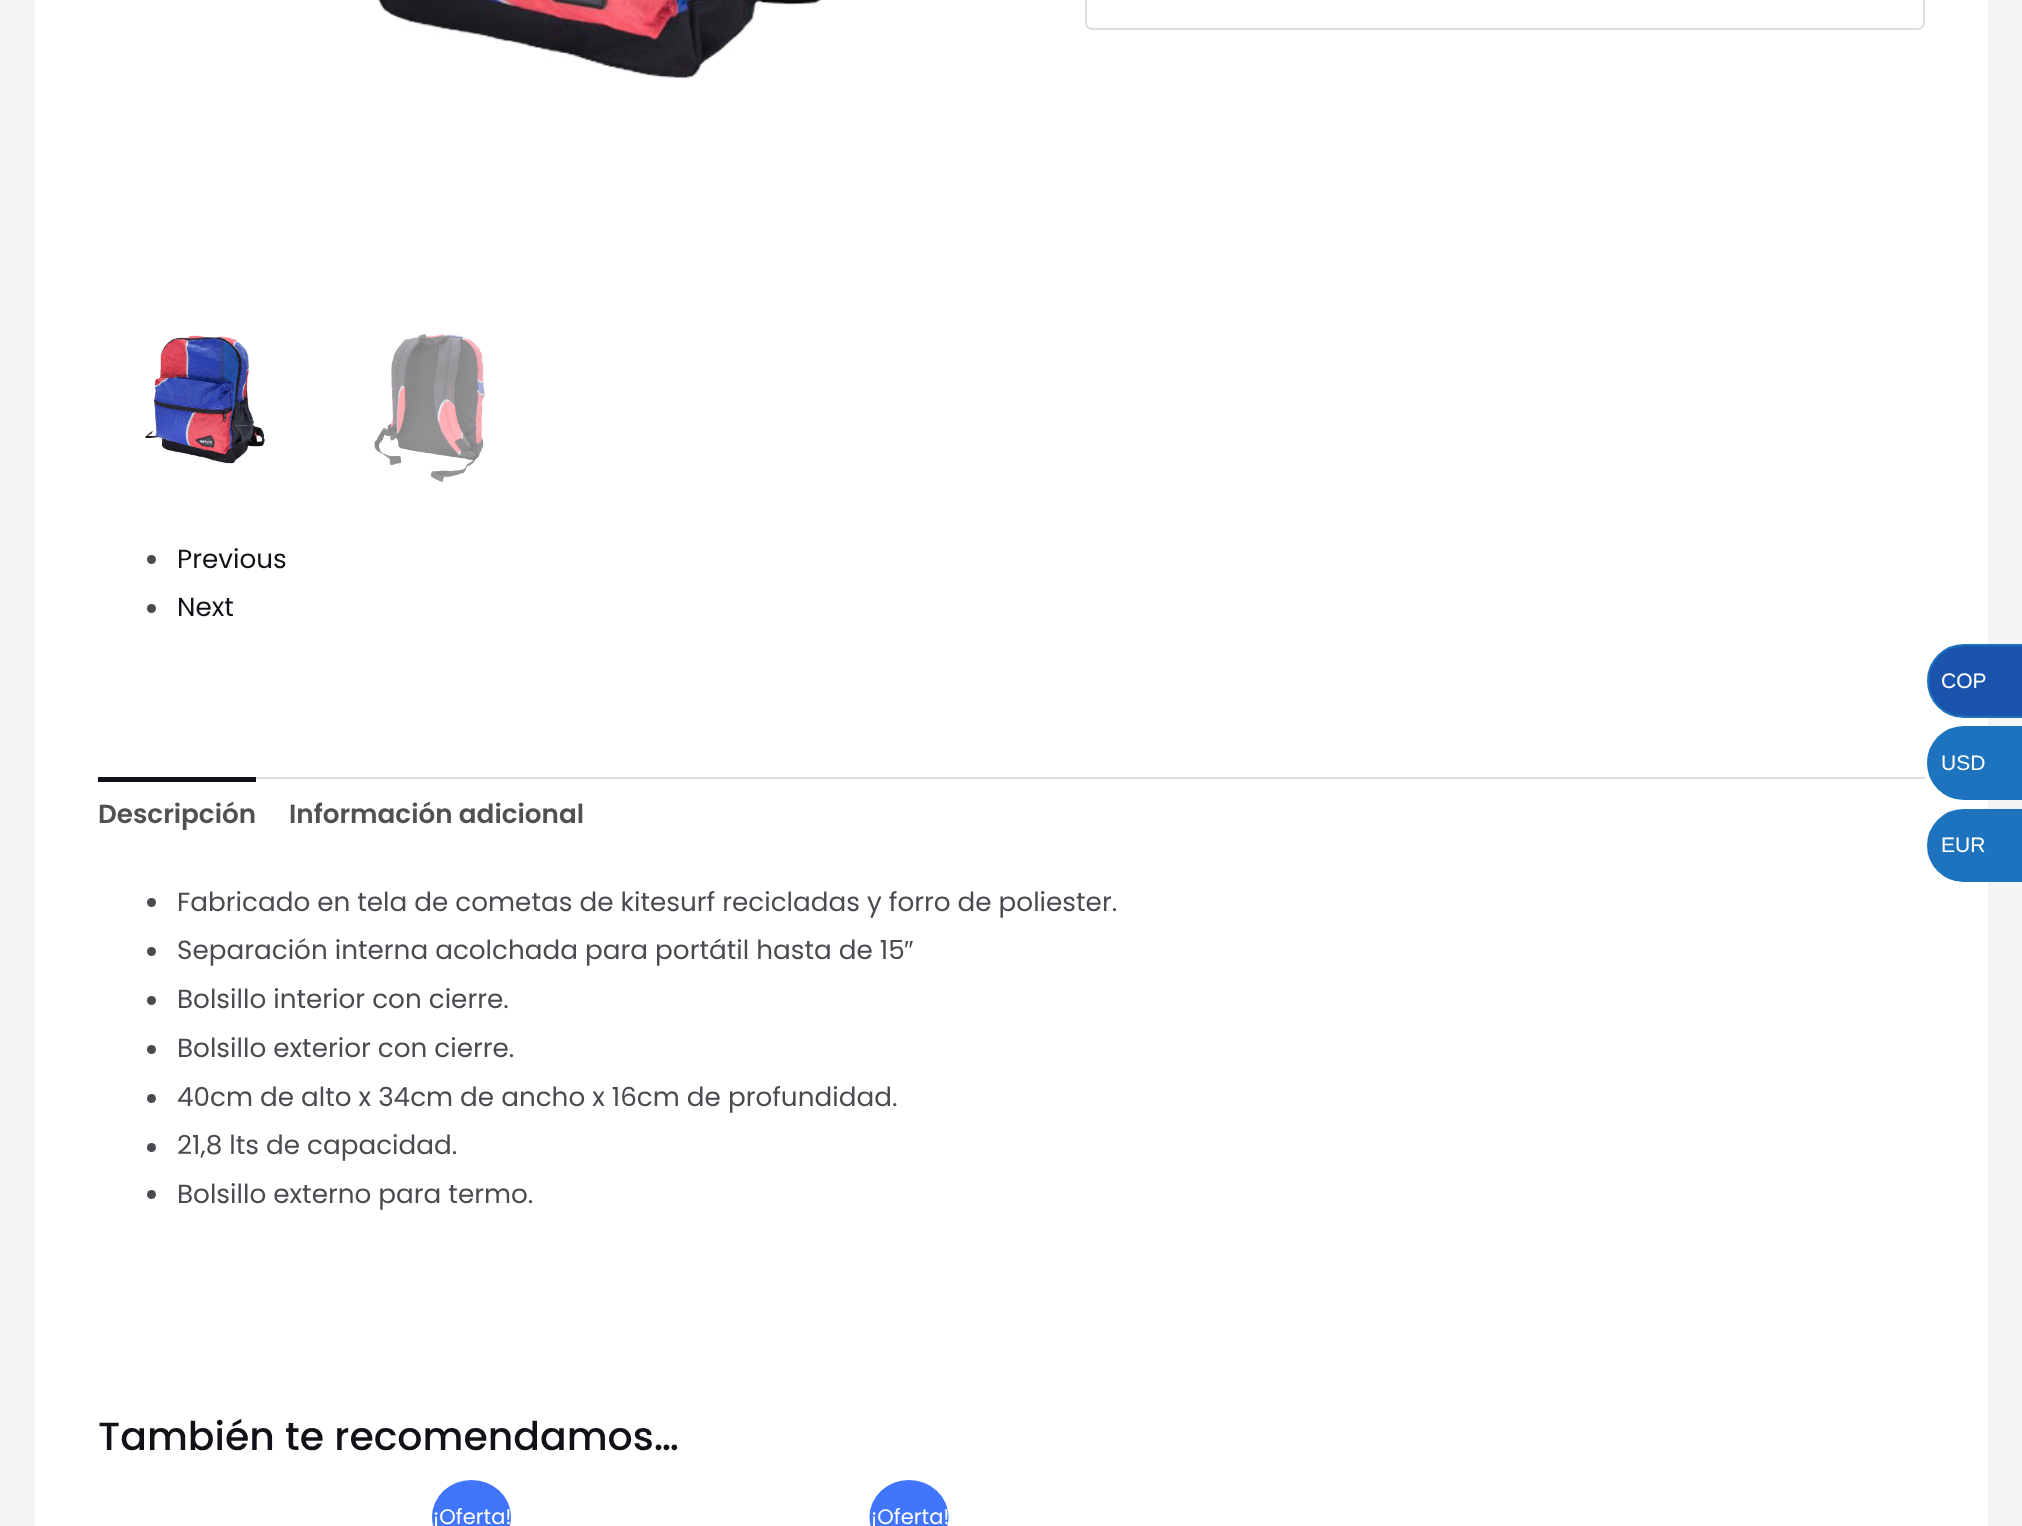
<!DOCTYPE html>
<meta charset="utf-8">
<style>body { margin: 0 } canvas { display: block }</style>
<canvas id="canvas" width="2022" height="1526"></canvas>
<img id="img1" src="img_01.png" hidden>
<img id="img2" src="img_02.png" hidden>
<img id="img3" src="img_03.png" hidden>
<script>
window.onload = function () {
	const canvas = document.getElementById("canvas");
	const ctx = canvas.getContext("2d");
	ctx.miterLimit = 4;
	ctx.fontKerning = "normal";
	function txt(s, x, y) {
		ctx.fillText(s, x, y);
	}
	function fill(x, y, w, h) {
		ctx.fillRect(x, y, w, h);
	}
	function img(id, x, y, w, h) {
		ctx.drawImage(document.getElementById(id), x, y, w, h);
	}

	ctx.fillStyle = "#F3F5F5";
	fill(0, 0, 2022, 1526);
	ctx.fillStyle = "#FFFFFF";
	fill(35, 0, 1953, 1526);
	ctx.beginPath();
	ctx.roundRect(1086, -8, 838, 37, 6);
	ctx.strokeStyle = "#DDDDDD";
	ctx.lineWidth = 2;
	ctx.stroke();
	img("img1", 377, 0, 445, 79);
	img("img2", 145, 335, 120, 129);
	img("img3", 374, 334, 111, 148);
	ctx.fillStyle = "#494B51";
	ctx.beginPath();
	ctx.arc(151.5, 559.5, 4.5, 0, Math.PI * 2);
	ctx.fill();
	ctx.beginPath();
	ctx.arc(151.5, 608.5, 4.5, 0, Math.PI * 2);
	ctx.fill();
	ctx.fillStyle = "#DDDDDD";
	fill(256, 777, 1669, 2);
	ctx.fillStyle = "#101218";
	fill(98, 777, 158, 5);
	ctx.fillStyle = "#494B51";
	ctx.beginPath();
	ctx.arc(151.5, 902.5, 4.5, 0, Math.PI * 2);
	ctx.fill();
	ctx.beginPath();
	ctx.arc(151.5, 951.5, 4.5, 0, Math.PI * 2);
	ctx.fill();
	ctx.beginPath();
	ctx.arc(151.5, 1000.5, 4.5, 0, Math.PI * 2);
	ctx.fill();
	ctx.beginPath();
	ctx.arc(151.5, 1049.5, 4.5, 0, Math.PI * 2);
	ctx.fill();
	ctx.beginPath();
	ctx.arc(151.5, 1098.5, 4.5, 0, Math.PI * 2);
	ctx.fill();
	ctx.beginPath();
	ctx.arc(151.5, 1147.5, 4.5, 0, Math.PI * 2);
	ctx.fill();
	ctx.beginPath();
	ctx.arc(151.5, 1194.5, 4.5, 0, Math.PI * 2);
	ctx.fill();
	ctx.fillStyle = "#4175FC";
	ctx.beginPath();
	ctx.ellipse(471.5, 1517, 39.5, 37, 0, 0, Math.PI * 2);
	ctx.fill();
	ctx.beginPath();
	ctx.ellipse(909, 1517, 39.5, 37, 0, 0, Math.PI * 2);
	ctx.fill();
	ctx.fillStyle = "#1A54AD";
	ctx.beginPath();
	ctx.moveTo(1964, 645);
	ctx.lineTo(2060, 645);
	ctx.lineTo(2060, 717);
	ctx.lineTo(1964, 717);
	ctx.bezierCurveTo(1944, 717, 1928, 701, 1928, 681);
	ctx.bezierCurveTo(1928, 661, 1944, 645, 1964, 645);
	ctx.closePath();
	ctx.fill();
	ctx.strokeStyle = "#1E73BE";
	ctx.stroke();
	ctx.fillStyle = "#1E73BE";
	ctx.beginPath();
	ctx.moveTo(1964, 727);
	ctx.lineTo(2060, 727);
	ctx.lineTo(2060, 799);
	ctx.lineTo(1964, 799);
	ctx.bezierCurveTo(1944, 799, 1928, 783, 1928, 763);
	ctx.bezierCurveTo(1928, 743, 1944, 727, 1964, 727);
	ctx.closePath();
	ctx.fill();
	ctx.stroke();
	ctx.beginPath();
	ctx.moveTo(1963.5, 810);
	ctx.lineTo(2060, 810);
	ctx.lineTo(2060, 881);
	ctx.lineTo(1963.5, 881);
	ctx.bezierCurveTo(1944, 881, 1928, 865, 1928, 845.5);
	ctx.bezierCurveTo(1928, 826, 1944, 810, 1963.5, 810);
	ctx.closePath();
	ctx.fill();
	ctx.stroke();
	ctx.font = "26.25px Poppins";
	ctx.fillStyle = "#101218";
	txt("Previous", 177, 568);
	txt("Next", 177, 616);
	ctx.font = "600 26.25px Poppins";
	ctx.fillStyle = "#515151";
	txt("Descripción", 98, 823);
	txt("Información adicional", 289, 823);
	ctx.font = "26.25px Poppins";
	ctx.fillStyle = "#494B51";
	txt("Fabricado en tela de cometas de kitesurf recicladas y forro de poliester.", 177, 911);
	txt("Separación interna acolchada para portátil hasta de 15", 177, 959);
	ctx.font = "26.25px Liberation Sans";
	txt("″", 904, 959);
	ctx.font = "26.25px Poppins";
	txt("Bolsillo interior con cierre.", 177, 1008);
	txt("Bolsillo exterior con cierre.", 177, 1057);
	txt("40cm de alto x 34cm de ancho x 16cm de profundidad.", 177, 1106);
	txt("21,8 lts de capacidad.", 177, 1154);
	txt("Bolsillo externo para termo.", 177, 1203);
	ctx.font = "500 39.4px Poppins";
	ctx.fillStyle = "#101218";
	txt("También te recomendamos…", 98, 1450);
	ctx.font = "21px Poppins";
	ctx.fillStyle = "#FFFFFF";
	txt("¡Oferta!", 433, 1524);
	txt("¡Oferta!", 871, 1524);
	ctx.font = "21px Liberation Sans";
	txt("COP", 1941, 688);
	txt("USD", 1941, 770);
	txt("EUR", 1941, 852);
};
</script>
